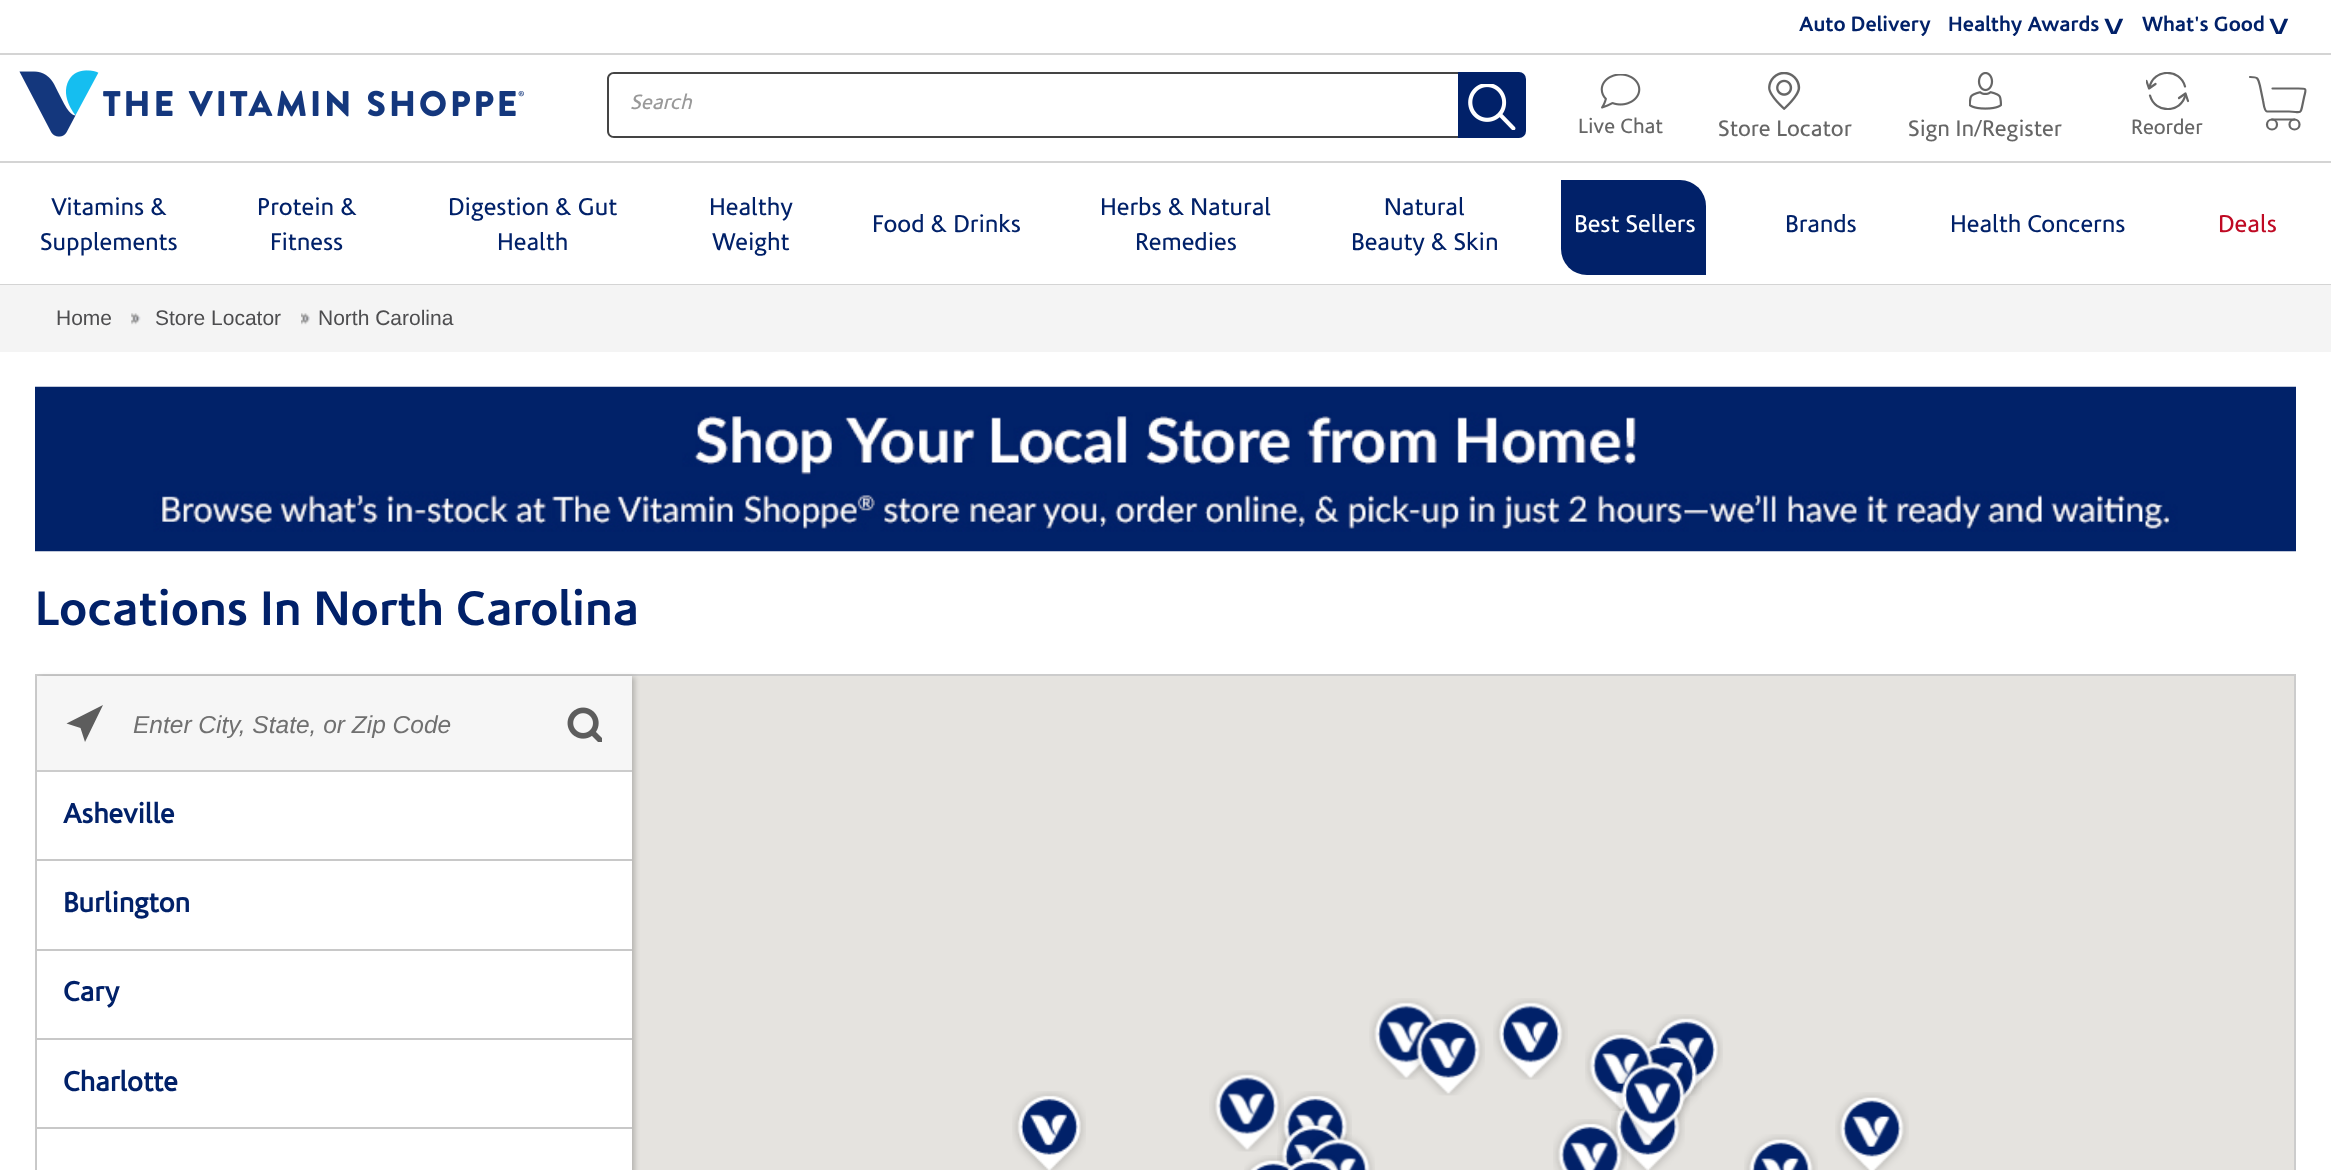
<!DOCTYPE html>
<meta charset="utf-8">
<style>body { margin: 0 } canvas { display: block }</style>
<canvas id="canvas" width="2331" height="1170"></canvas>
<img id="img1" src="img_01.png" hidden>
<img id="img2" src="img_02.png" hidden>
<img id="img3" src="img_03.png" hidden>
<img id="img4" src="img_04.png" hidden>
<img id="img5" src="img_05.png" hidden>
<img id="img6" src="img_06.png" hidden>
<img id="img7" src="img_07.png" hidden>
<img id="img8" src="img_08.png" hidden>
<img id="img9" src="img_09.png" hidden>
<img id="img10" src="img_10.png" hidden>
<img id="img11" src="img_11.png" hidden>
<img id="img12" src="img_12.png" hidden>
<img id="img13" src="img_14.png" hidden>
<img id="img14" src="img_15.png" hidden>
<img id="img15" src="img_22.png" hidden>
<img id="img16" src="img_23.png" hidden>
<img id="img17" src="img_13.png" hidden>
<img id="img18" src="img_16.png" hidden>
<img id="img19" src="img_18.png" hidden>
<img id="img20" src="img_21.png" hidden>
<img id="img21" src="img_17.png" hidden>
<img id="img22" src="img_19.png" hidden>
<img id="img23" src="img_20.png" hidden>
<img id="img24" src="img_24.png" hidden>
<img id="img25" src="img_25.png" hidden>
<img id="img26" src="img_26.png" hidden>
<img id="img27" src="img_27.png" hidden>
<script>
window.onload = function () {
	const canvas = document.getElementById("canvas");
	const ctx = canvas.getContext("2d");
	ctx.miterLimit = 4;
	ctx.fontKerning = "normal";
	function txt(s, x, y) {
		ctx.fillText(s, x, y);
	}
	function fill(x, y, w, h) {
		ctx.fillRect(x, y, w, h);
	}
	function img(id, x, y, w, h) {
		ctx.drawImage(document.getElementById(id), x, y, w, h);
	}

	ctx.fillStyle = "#FFFFFF";
	fill(0, 0, 2331, 1170);
	ctx.fillStyle = "#D4D4D4";
	fill(0, 284, 2331, 1);
	fill(0, 53, 2331, 2);
	fill(0, 161, 2331, 2);
	img("img1", 19, 70, 505, 67);
	ctx.fillStyle = "#444444";
	ctx.beginPath();
	ctx.moveTo(614, 72);
	ctx.lineTo(1458, 72);
	ctx.lineTo(1458, 138);
	ctx.lineTo(614, 138);
	ctx.bezierCurveTo(610, 138, 607, 135, 607, 131);
	ctx.lineTo(607, 79);
	ctx.bezierCurveTo(607, 75, 610, 72, 614, 72);
	ctx.closePath();
	ctx.moveTo(614, 74);
	ctx.lineTo(1458, 74);
	ctx.lineTo(1458, 136);
	ctx.lineTo(614, 136);
	ctx.bezierCurveTo(611, 136, 609, 134, 609, 131);
	ctx.lineTo(609, 79);
	ctx.bezierCurveTo(609, 76, 611, 74, 614, 74);
	ctx.closePath();
	ctx.fill("evenodd");
	ctx.fillStyle = "#012169";
	ctx.beginPath();
	ctx.roundRect(1458, 72, 68, 66, [0, 7, 7, 0]);
	ctx.fill();
	img("img2", 1468, 84, 48, 46);
	ctx.beginPath();
	ctx.moveTo(2250, 77);
	ctx.bezierCurveTo(2258, 77, 2258, 78, 2260, 86);
	ctx.lineTo(2263, 100.5);
	ctx.bezierCurveTo(2263.5, 102, 2264, 111, 2267, 111.5);
	ctx.lineTo(2289, 111.5);
	ctx.bezierCurveTo(2298.5, 111.5, 2300.5, 115, 2302, 107);
	ctx.lineTo(2304, 97.5);
	ctx.bezierCurveTo(2306, 88.5, 2307.5, 88.5, 2298.5, 88.5);
	ctx.lineTo(2272.5, 88.5);
	ctx.strokeStyle = "#666666";
	ctx.lineWidth = 2.2;
	ctx.lineCap = "round";
	ctx.lineJoin = "round";
	ctx.stroke();
	ctx.beginPath();
	ctx.arc(2272, 124.5, 5, 0, Math.PI * 2);
	ctx.stroke();
	ctx.beginPath();
	ctx.arc(2294.5, 124.5, 5, 0, Math.PI * 2);
	ctx.stroke();
	ctx.beginPath();
	ctx.moveTo(2272, 119.5);
	ctx.lineTo(2294.5, 119.5);
	ctx.stroke();
	img("img3", 1600, 74, 41, 35);
	img("img4", 1768, 72, 33, 38);
	img("img5", 1969, 72, 33, 38);
	ctx.save();
	ctx.beginPath();
	ctx.rect(2146, 72, 43, 38);
	ctx.clip();
	ctx.beginPath();
	ctx.moveTo(2149.5, 87.5);
	ctx.bezierCurveTo(2153.5, 68.5, 2180, 68, 2185, 86.5);
	ctx.moveTo(2146.5, 81);
	ctx.lineTo(2149, 88.5);
	ctx.lineTo(2155.5, 84);
	ctx.stroke();
	ctx.beginPath();
	ctx.moveTo(2185.5, 94.5);
	ctx.bezierCurveTo(2181.5, 113.5, 2155, 114, 2150, 95.5);
	ctx.stroke();
	ctx.restore();
	ctx.beginPath();
	ctx.moveTo(2188, 101);
	ctx.lineTo(2185.5, 93.5);
	ctx.lineTo(2179, 98);
	ctx.stroke();
	ctx.beginPath();
	ctx.roundRect(1561, 180, 145, 95, [0, 26, 0, 26]);
	ctx.fill();
	ctx.fillStyle = "#F4F4F4";
	fill(0, 285, 2331, 67);
	img("img6", 131, 313, 10, 12);
	img("img7", 301, 313, 9, 12);
	img("img8", 35, 386, 2261, 166);
	ctx.strokeStyle = "#CCCCCC";
	ctx.lineWidth = 2;
	ctx.lineJoin = "miter";
	ctx.strokeRect(36, 675, 2259, 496);
	ctx.fillStyle = "#E5E3DF";
	fill(632, 676, 1662, 494);
	ctx.save();
	ctx.beginPath();
	ctx.moveTo(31, 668);
	ctx.lineTo(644, 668);
	ctx.lineTo(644, 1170);
	ctx.lineTo(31, 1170);
	ctx.closePath();
	ctx.moveTo(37, 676);
	ctx.lineTo(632, 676);
	ctx.lineTo(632, 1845);
	ctx.lineTo(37, 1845);
	ctx.closePath();
	ctx.clip("evenodd");
	ctx.fillStyle = "rgba(0, 0, 0, 0.2)";
	ctx.filter = "blur(2.5px)";
	ctx.beginPath();
	ctx.rect(40, 677, 595, 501);
	ctx.fill();
	ctx.filter = "none";
	ctx.restore();
	ctx.fillStyle = "#F6F6F6";
	fill(37, 676, 595, 94);
	ctx.fillStyle = "#CCCCCC";
	fill(37, 770, 595, 2);
	ctx.fillStyle = "#5D5D5D";
	ctx.beginPath();
	ctx.moveTo(103, 705);
	ctx.lineTo(66.5, 723.5);
	ctx.lineTo(80.5, 728);
	ctx.lineTo(85, 742);
	ctx.closePath();
	ctx.fill();
	img("img9", 567, 707, 35, 35);
	ctx.fillStyle = "#C8C8C8";
	fill(37, 859, 595, 2);
	fill(37, 949, 595, 2);
	fill(37, 1038, 595, 2);
	fill(37, 1127, 595, 2);
	img("img10", 1369, 998, 72, 82);
	img("img11", 1411, 1014, 74, 82);
	img("img12", 1493, 998, 75, 82);
	img("img13", 1649, 1014, 74, 82);
	img("img14", 1642, 1038, 60, 80);
	img("img15", 1553, 1119, 74, 51);
	img("img16", 1611, 1103, 74, 67);
	img("img17", 1585, 1029, 74, 82);
	img("img18", 1012, 1091, 74, 79);
	img("img19", 1278, 1091, 74, 59);
	img("img20", 1277, 1120, 70, 49);
	img("img21", 1209, 1070, 75, 82);
	img("img22", 1616, 1059, 74, 82);
	img("img23", 1835, 1092, 74, 78);
	img("img24", 1303, 1134, 72, 36);
	img("img25", 1744, 1134, 74, 36);
	img("img26", 1244, 1155, 54, 15);
	img("img27", 1283, 1154, 60, 16);
	ctx.font = "bold 21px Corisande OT";
	ctx.fillStyle = "#012169";
	txt("Auto Delivery", 1799, 31);
	txt("Healthy Awards", 1948, 31);
	ctx.font = "bold 35px Liberation Mono";
	ctx.save();
	ctx.translate(2124, 10);
	ctx.rotate(180 * Math.PI / 180);
	ctx.fillText("^", 0, 0);
	ctx.restore();
	ctx.font = "bold 21px Corisande OT";
	txt("What's Good", 2142, 31);
	ctx.font = "bold 35px Liberation Mono";
	ctx.save();
	ctx.translate(2289, 10);
	ctx.rotate(180 * Math.PI / 180);
	ctx.fillText("^", 0, 0);
	ctx.restore();
	ctx.font = "italic 21px Corisande OT";
	ctx.fillStyle = "#999999";
	txt("Search", 630, 109);
	ctx.font = "21px Corisande OT";
	ctx.fillStyle = "#666666";
	txt("Live Chat", 1578, 133);
	ctx.font = "22.75px Corisande OT";
	txt("Store Locator", 1718, 136);
	txt("Sign In/Register", 1908, 136);
	ctx.font = "21px Corisande OT";
	txt("Reorder", 2131, 134);
	ctx.font = "24.5px Corisande OT";
	ctx.fillStyle = "#012169";
	txt("Vitamins &", 51, 215);
	txt("Supplements", 40, 250);
	txt("Protein &", 257, 215);
	txt("Fitness", 270, 250);
	txt("Digestion & Gut", 448, 215);
	txt("Health", 497, 250);
	txt("Healthy", 709, 215);
	txt("Weight", 712, 250);
	txt("Food & Drinks", 872, 232);
	txt("Herbs & Natural", 1100, 215);
	txt("Remedies", 1135, 250);
	txt("Natural", 1384, 215);
	txt("Beauty & Skin", 1351, 250);
	ctx.fillStyle = "#FFFFFF";
	txt("Best Sellers", 1574, 232);
	ctx.fillStyle = "#012169";
	txt("Brands", 1785, 232);
	txt("Health Concerns", 1950, 232);
	ctx.fillStyle = "#BF0923";
	txt("Deals", 2218, 232);
	ctx.font = "21px Liberation Sans";
	ctx.fillStyle = "#4D4D4F";
	txt("Home", 56, 325);
	txt("Store Locator", 155, 325);
	txt("North Carolina", 318, 325);
	ctx.font = "bold 49px Corisande OT";
	ctx.fillStyle = "#012169";
	txt("Locations In North Carolina", 35, 625);
	ctx.font = "italic 24.5px Liberation Sans";
	ctx.fillStyle = "#707070";
	txt("Enter City, State, or Zip Code", 133, 733);
	ctx.font = "bold 28px 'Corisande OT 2'";
	ctx.fillStyle = "#012169";
	txt("Asheville", 63, 823);
	txt("Burlington", 63, 912);
	txt("Cary", 63, 1001);
	txt("Charlotte", 63, 1091);
};
</script>
